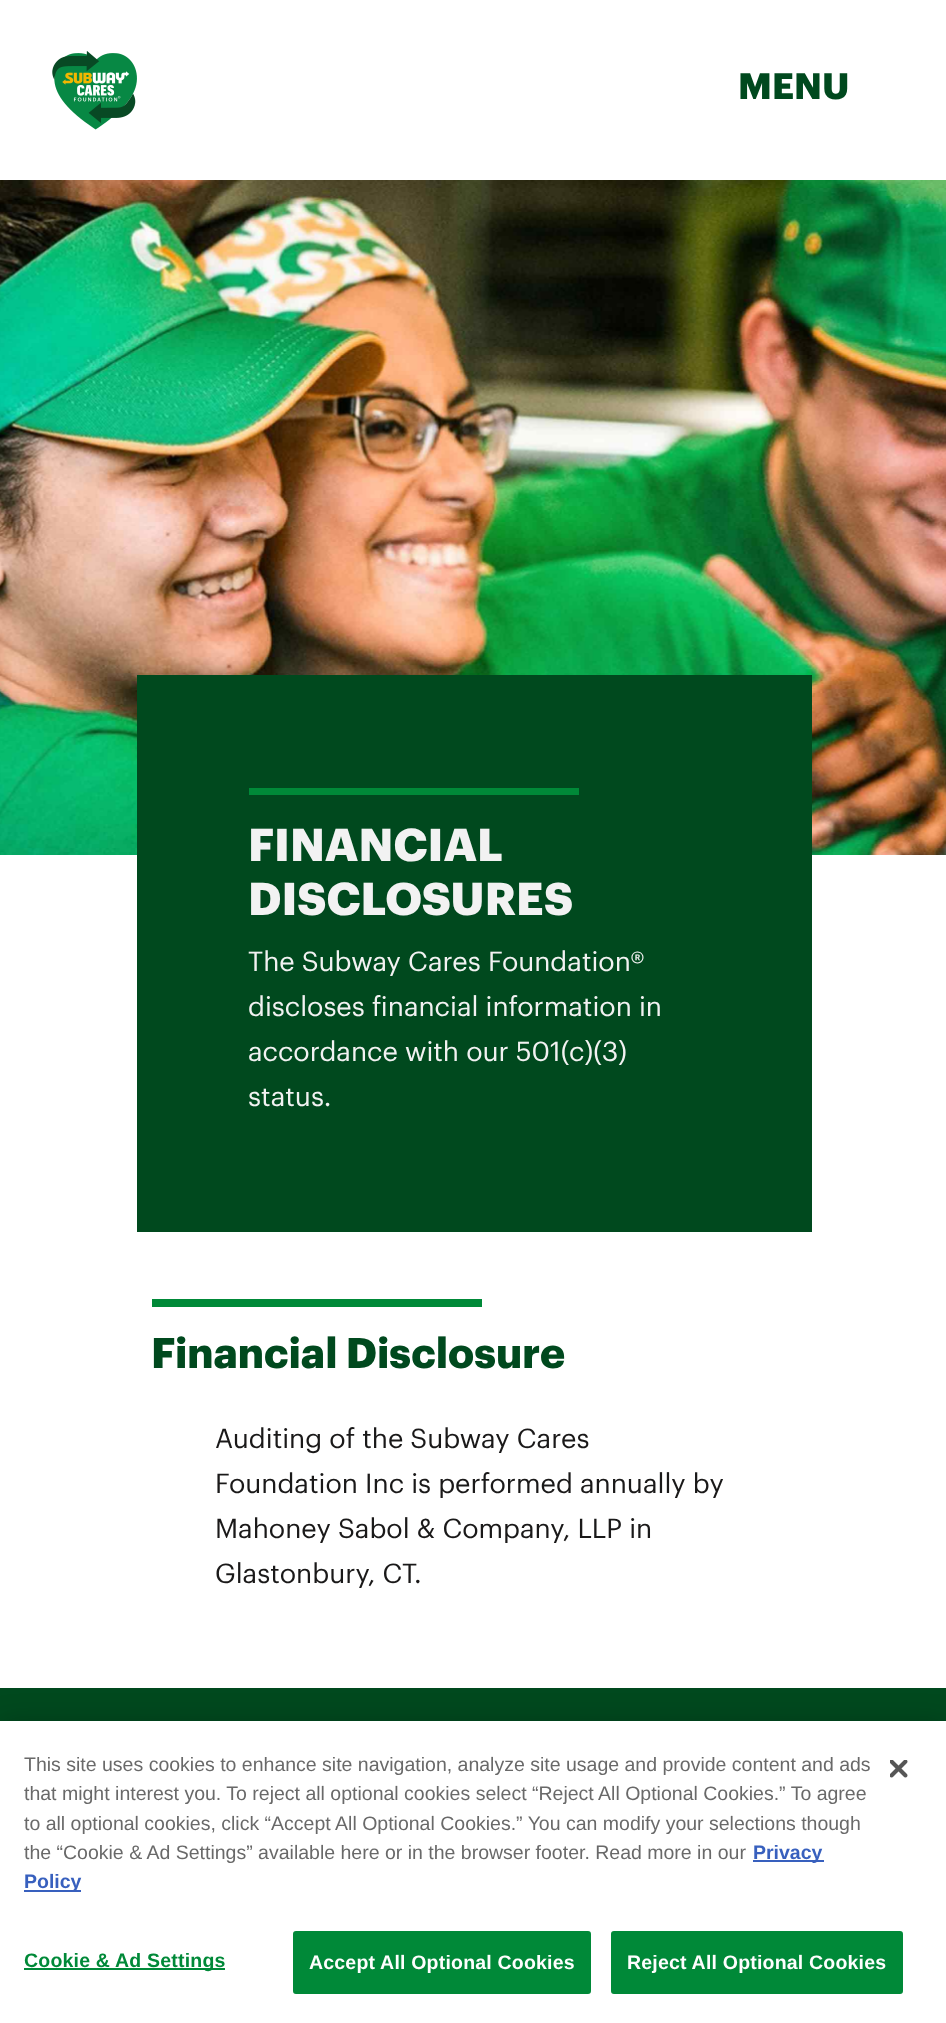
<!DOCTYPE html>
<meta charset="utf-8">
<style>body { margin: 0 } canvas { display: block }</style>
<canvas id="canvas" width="946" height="2023"></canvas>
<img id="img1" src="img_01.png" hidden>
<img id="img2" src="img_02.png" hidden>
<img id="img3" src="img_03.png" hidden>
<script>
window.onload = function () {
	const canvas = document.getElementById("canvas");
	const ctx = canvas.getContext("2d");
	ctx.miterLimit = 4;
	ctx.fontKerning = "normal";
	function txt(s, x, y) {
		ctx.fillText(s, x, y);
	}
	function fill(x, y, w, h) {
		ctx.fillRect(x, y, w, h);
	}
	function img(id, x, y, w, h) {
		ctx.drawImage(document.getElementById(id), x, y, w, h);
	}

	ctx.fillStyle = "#FFFFFF";
	fill(0, 0, 946, 2023);
	img("img1", 52, 51, 85, 79);
	img("img2", 0, 180, 946, 675);
	ctx.fillStyle = "#00491E";
	fill(137, 675, 675, 557);
	ctx.fillStyle = "#008938";
	fill(249, 788, 330, 7);
	fill(152, 1299, 330, 8);
	ctx.fillStyle = "#00491E";
	fill(0, 1688, 946, 33);
	ctx.fillStyle = "rgba(0, 0, 0, 0.2)";
	ctx.filter = "blur(13.5px)";
	ctx.beginPath();
	ctx.rect(0, 1721, 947, 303);
	ctx.fill();
	ctx.filter = "none";
	ctx.fillStyle = "#FFFFFF";
	fill(0, 1721, 946, 302);
	ctx.fillStyle = "#3860BE";
	fill(753, 1860, 71, 2);
	fill(24, 1890, 57, 2);
	ctx.fillStyle = "#008938";
	fill(24, 1968, 201, 2);
	ctx.beginPath();
	ctx.roundRect(294, 1932, 296, 61, 2);
	ctx.fill();
	ctx.strokeStyle = "#008938";
	ctx.lineWidth = 2;
	ctx.stroke();
	ctx.beginPath();
	ctx.roundRect(612, 1932, 290, 61, 2);
	ctx.fill();
	ctx.stroke();
	img("img3", 890, 1760, 18, 18);
	ctx.font = "bold 36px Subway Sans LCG";
	ctx.fillStyle = "#00491E";
	txt("MENU", 738, 99);
	ctx.font = "bold 45px Subway Sans LCG";
	ctx.fillStyle = "#F2F2F2";
	txt("FINANCIAL", 248, 861);
	txt("DISCLOSURES", 248, 915);
	ctx.font = "27px Subway Sans LCG";
	txt("The Subway Cares Foundation®", 248, 971);
	txt("discloses financial information in", 248, 1016);
	txt("accordance with our 501(c)(3)", 248, 1061);
	txt("status.", 248, 1106);
	ctx.font = "bold 42px Subway Sans LCG";
	ctx.fillStyle = "#00491E";
	txt("Financial Disclosure", 151, 1368);
	ctx.font = "27px Subway Sans LCG";
	ctx.fillStyle = "#1A1919";
	txt("Auditing of the Subway Cares", 215, 1448);
	txt("Foundation Inc is performed annually by", 215, 1493);
	txt("Mahoney Sabol & Company, LLP in", 215, 1538);
	txt("Glastonbury, CT.", 215, 1583);
	ctx.font = "19.5px Liberation Sans";
	ctx.fillStyle = "#696969";
	txt("This site uses cookies to enhance site navigation, analyze site usage and provide content and ads", 24, 1771);
	txt("that might interest you. To reject all optional cookies select “Reject All Optional Cookies.” To agree", 24, 1800);
	txt("to all optional cookies, click “Accept All Optional Cookies.” You can modify your selections though", 24, 1830);
	txt("the “Cookie & Ad Settings” available here or in the browser footer. Read more in our", 24, 1859);
	ctx.font = "bold 19.5px Liberation Sans";
	ctx.fillStyle = "#3860BE";
	txt("Privacy", 753, 1859);
	txt("Policy", 24, 1888);
	ctx.letterSpacing = "0.2px";
	ctx.fillStyle = "#008938";
	txt("Cookie & Ad Settings", 24, 1967);
	ctx.fillStyle = "#FEFEFE";
	txt("Accept All Optional Cookies", 309, 1969);
	txt("Reject All Optional Cookies", 627, 1969);
};
</script>
